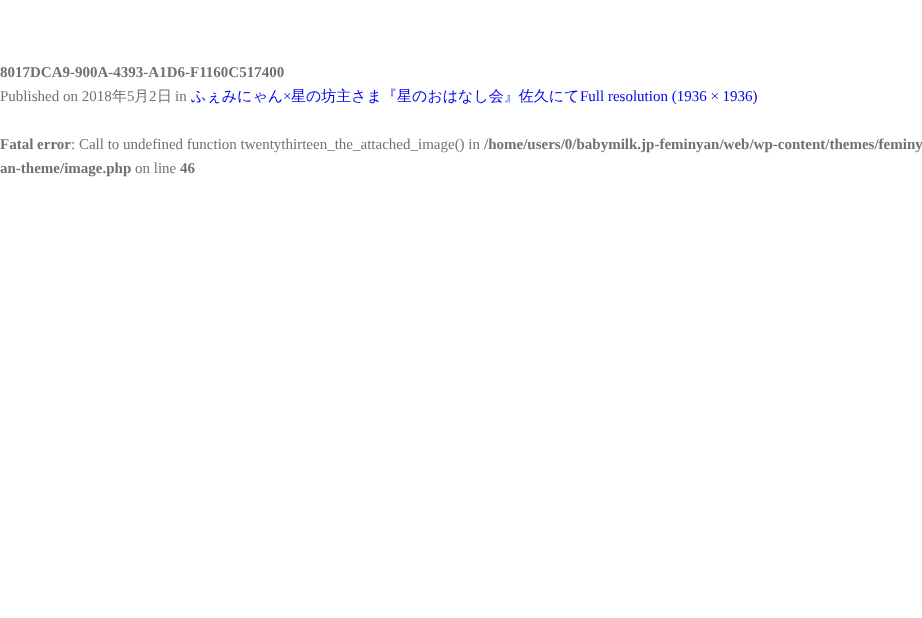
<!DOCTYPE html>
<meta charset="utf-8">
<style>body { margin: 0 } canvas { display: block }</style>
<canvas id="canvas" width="922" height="618"></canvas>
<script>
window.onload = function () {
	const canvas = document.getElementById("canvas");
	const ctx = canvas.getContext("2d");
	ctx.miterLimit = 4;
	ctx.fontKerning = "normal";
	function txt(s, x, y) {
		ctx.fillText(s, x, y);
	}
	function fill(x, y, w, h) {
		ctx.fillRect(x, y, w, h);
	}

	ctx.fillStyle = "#FFFFFF";
	fill(0, 0, 922, 618);
	ctx.font = "bold 15px Liberation Serif";
	ctx.fillStyle = "#717171";
	txt("8017DCA9-900A-4393-A1D6-F1160C517400", 0, 77);
	ctx.font = "15px Liberation Serif";
	txt("Published on 2018", 0, 101);
	ctx.font = "500 15px WenQuanYi Zen Hei";
	txt("年", 112, 101);
	ctx.font = "15px Liberation Serif";
	txt("5", 127, 101);
	ctx.font = "500 15px WenQuanYi Zen Hei";
	txt("月", 134, 101);
	ctx.font = "15px Liberation Serif";
	txt("2", 149, 101);
	ctx.font = "500 15px WenQuanYi Zen Hei";
	txt("日", 157, 101);
	ctx.font = "15px Liberation Serif";
	txt("in", 175, 101);
	ctx.font = "500 15px WenQuanYi Zen Hei";
	ctx.fillStyle = "#0000EE";
	txt("ふぇみにゃん", 191, 101);
	ctx.font = "15px Liberation Serif";
	txt("×", 283, 101);
	ctx.font = "500 15px WenQuanYi Zen Hei";
	txt("星の坊主さま『星のおはなし会』佐久にて", 291, 101);
	ctx.font = "15px Liberation Serif";
	txt("Full resolution (1936 × 1936)", 580, 101);
	ctx.font = "bold 15px Liberation Serif";
	ctx.fillStyle = "#717171";
	txt("Fatal error", 0, 149);
	ctx.font = "15px Liberation Serif";
	txt(": Call to undefined function twentythirteen_the_attached_image() in", 71, 149);
	ctx.font = "bold 15px Liberation Serif";
	txt("/home/users/0/babymilk.jp-feminyan/web/wp-content/themes/feminy", 484, 149);
	txt("an-theme/image.php", 0, 173);
	ctx.font = "15px Liberation Serif";
	txt("on line", 135, 173);
	ctx.font = "bold 15px Liberation Serif";
	txt("46", 180, 173);
};
</script>
